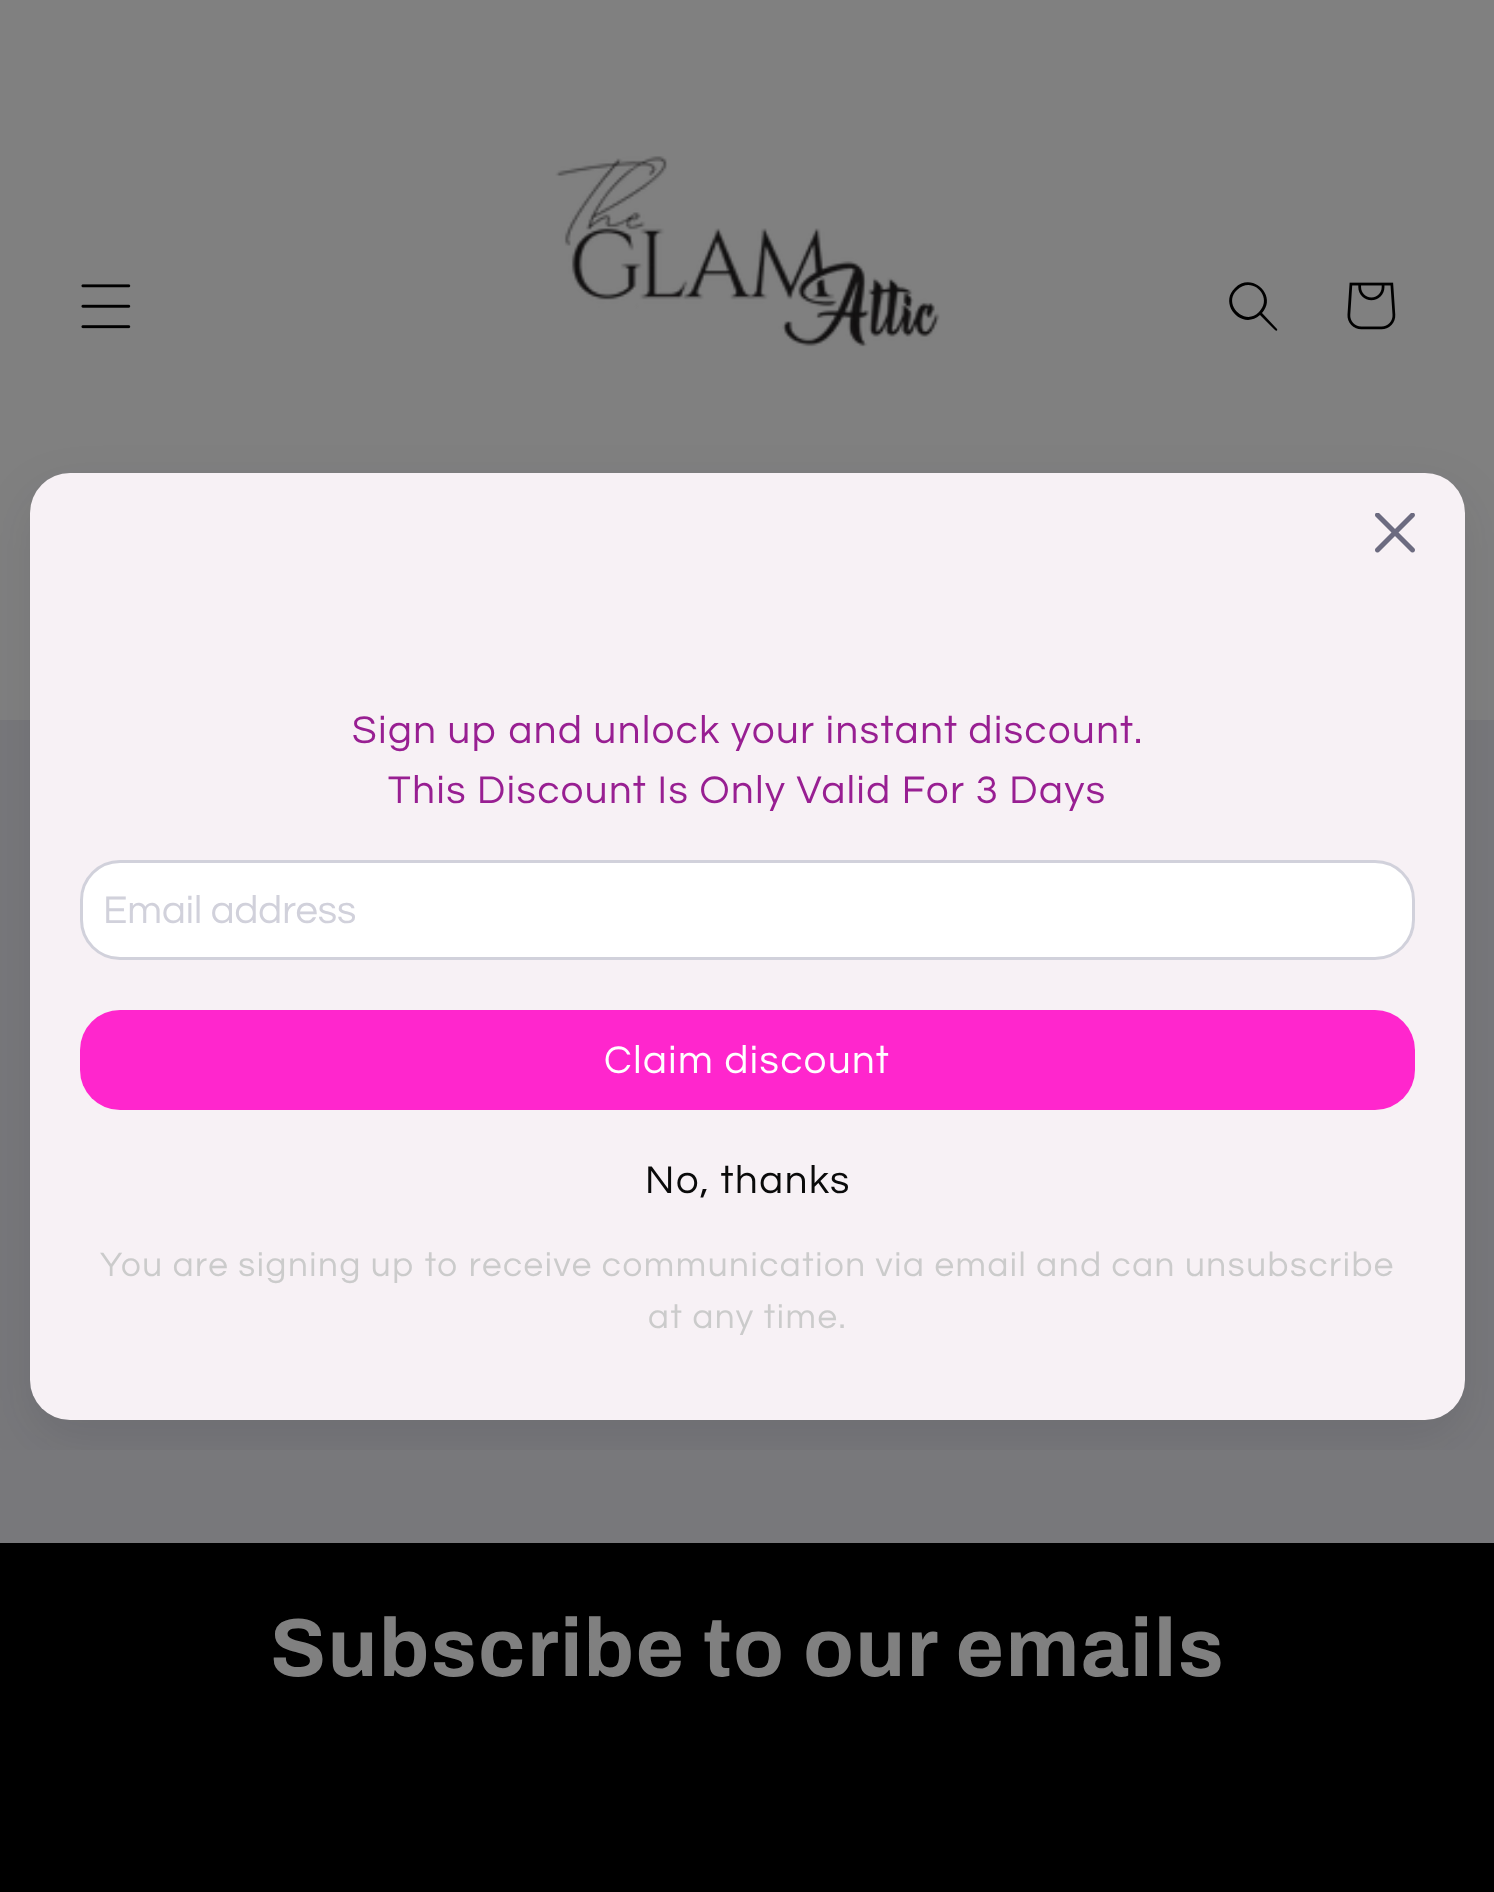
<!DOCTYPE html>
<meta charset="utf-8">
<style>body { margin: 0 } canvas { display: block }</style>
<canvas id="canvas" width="1494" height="1892"></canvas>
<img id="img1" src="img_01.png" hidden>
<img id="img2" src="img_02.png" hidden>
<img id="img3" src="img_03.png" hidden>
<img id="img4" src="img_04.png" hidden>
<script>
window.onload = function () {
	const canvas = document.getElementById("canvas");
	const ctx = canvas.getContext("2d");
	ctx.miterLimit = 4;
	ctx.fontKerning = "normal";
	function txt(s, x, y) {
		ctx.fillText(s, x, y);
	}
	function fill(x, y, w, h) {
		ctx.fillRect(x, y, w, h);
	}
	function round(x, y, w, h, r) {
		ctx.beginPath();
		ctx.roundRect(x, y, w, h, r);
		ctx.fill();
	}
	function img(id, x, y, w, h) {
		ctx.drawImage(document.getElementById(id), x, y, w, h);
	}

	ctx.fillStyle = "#78787B";
	fill(0, 0, 1494, 1892);
	ctx.fillStyle = "#808080";
	fill(0, 0, 1494, 720);
	img("img1", 81, 284, 50, 45);
	img("img2", 555, 156, 385, 191);
	ctx.fillStyle = "#000000";
	ctx.beginPath();
	ctx.moveTo(1259, 312);
	ctx.bezierCurveTo(1245, 327, 1222, 304, 1237, 290);
	ctx.bezierCurveTo(1252, 275, 1274, 297, 1259, 312);
	ctx.moveTo(1260, 315);
	ctx.bezierCurveTo(1242, 331, 1218, 304, 1235, 288);
	ctx.bezierCurveTo(1252, 271, 1278, 296, 1262, 313);
	ctx.lineTo(1277, 329);
	ctx.bezierCurveTo(1278, 331, 1276, 331, 1275, 330);
	ctx.closePath();
	ctx.fill("evenodd");
	img("img3", 1347, 282, 49, 48);
	ctx.save();
	ctx.beginPath();
	ctx.rect(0, 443, 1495, 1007);
	ctx.clip();
	ctx.fillStyle = "rgba(18, 17, 39, 0.1)";
	ctx.filter = "blur(25px)";
	ctx.beginPath();
	ctx.roundRect(30, 493, 1435, 947, 40);
	ctx.fill();
	ctx.filter = "none";
	ctx.restore();
	ctx.fillStyle = "#F7F1F5";
	round(30, 473, 1435, 947, 40);
	img("img4", 1375, 513, 40, 40);
	ctx.fillStyle = "#FFFFFF";
	ctx.beginPath();
	ctx.roundRect(81.5, 861.5, 1332, 97, 38.5);
	ctx.fill();
	ctx.strokeStyle = "#D1D1DB";
	ctx.lineWidth = 3;
	ctx.stroke();
	ctx.fillStyle = "#FF26CD";
	round(80, 1010, 1335, 100, 40);
	ctx.fillStyle = "#000000";
	fill(0, 1543, 1494, 349);
	ctx.letterSpacing = "1.57px";
	ctx.font = "40px Questrial";
	ctx.fillStyle = "#981F92";
	txt("Sign up and unlock your instant discount.", 352, 743);
	txt("This Discount Is Only Valid For 3 Days", 388, 803);
	ctx.letterSpacing = "0px";
	ctx.fillStyle = "#D1D1DB";
	txt("Email address", 103, 923);
	ctx.letterSpacing = "1.57px";
	ctx.fillStyle = "#FFFFFF";
	txt("Claim discount", 604, 1073);
	ctx.fillStyle = "#0A0A0A";
	txt("No, thanks", 645, 1193);
	ctx.font = "35px Questrial";
	ctx.fillStyle = "#CBCBCB";
	txt("You are signing up to receive communication via email and can unsubscribe", 100, 1276);
	txt("at any time.", 648, 1328);
	ctx.letterSpacing = "1.65px";
	ctx.font = "bold 82.5px Archivo";
	ctx.fillStyle = "#808080";
	txt("Subscribe to our emails", 270, 1676);
};
</script>
